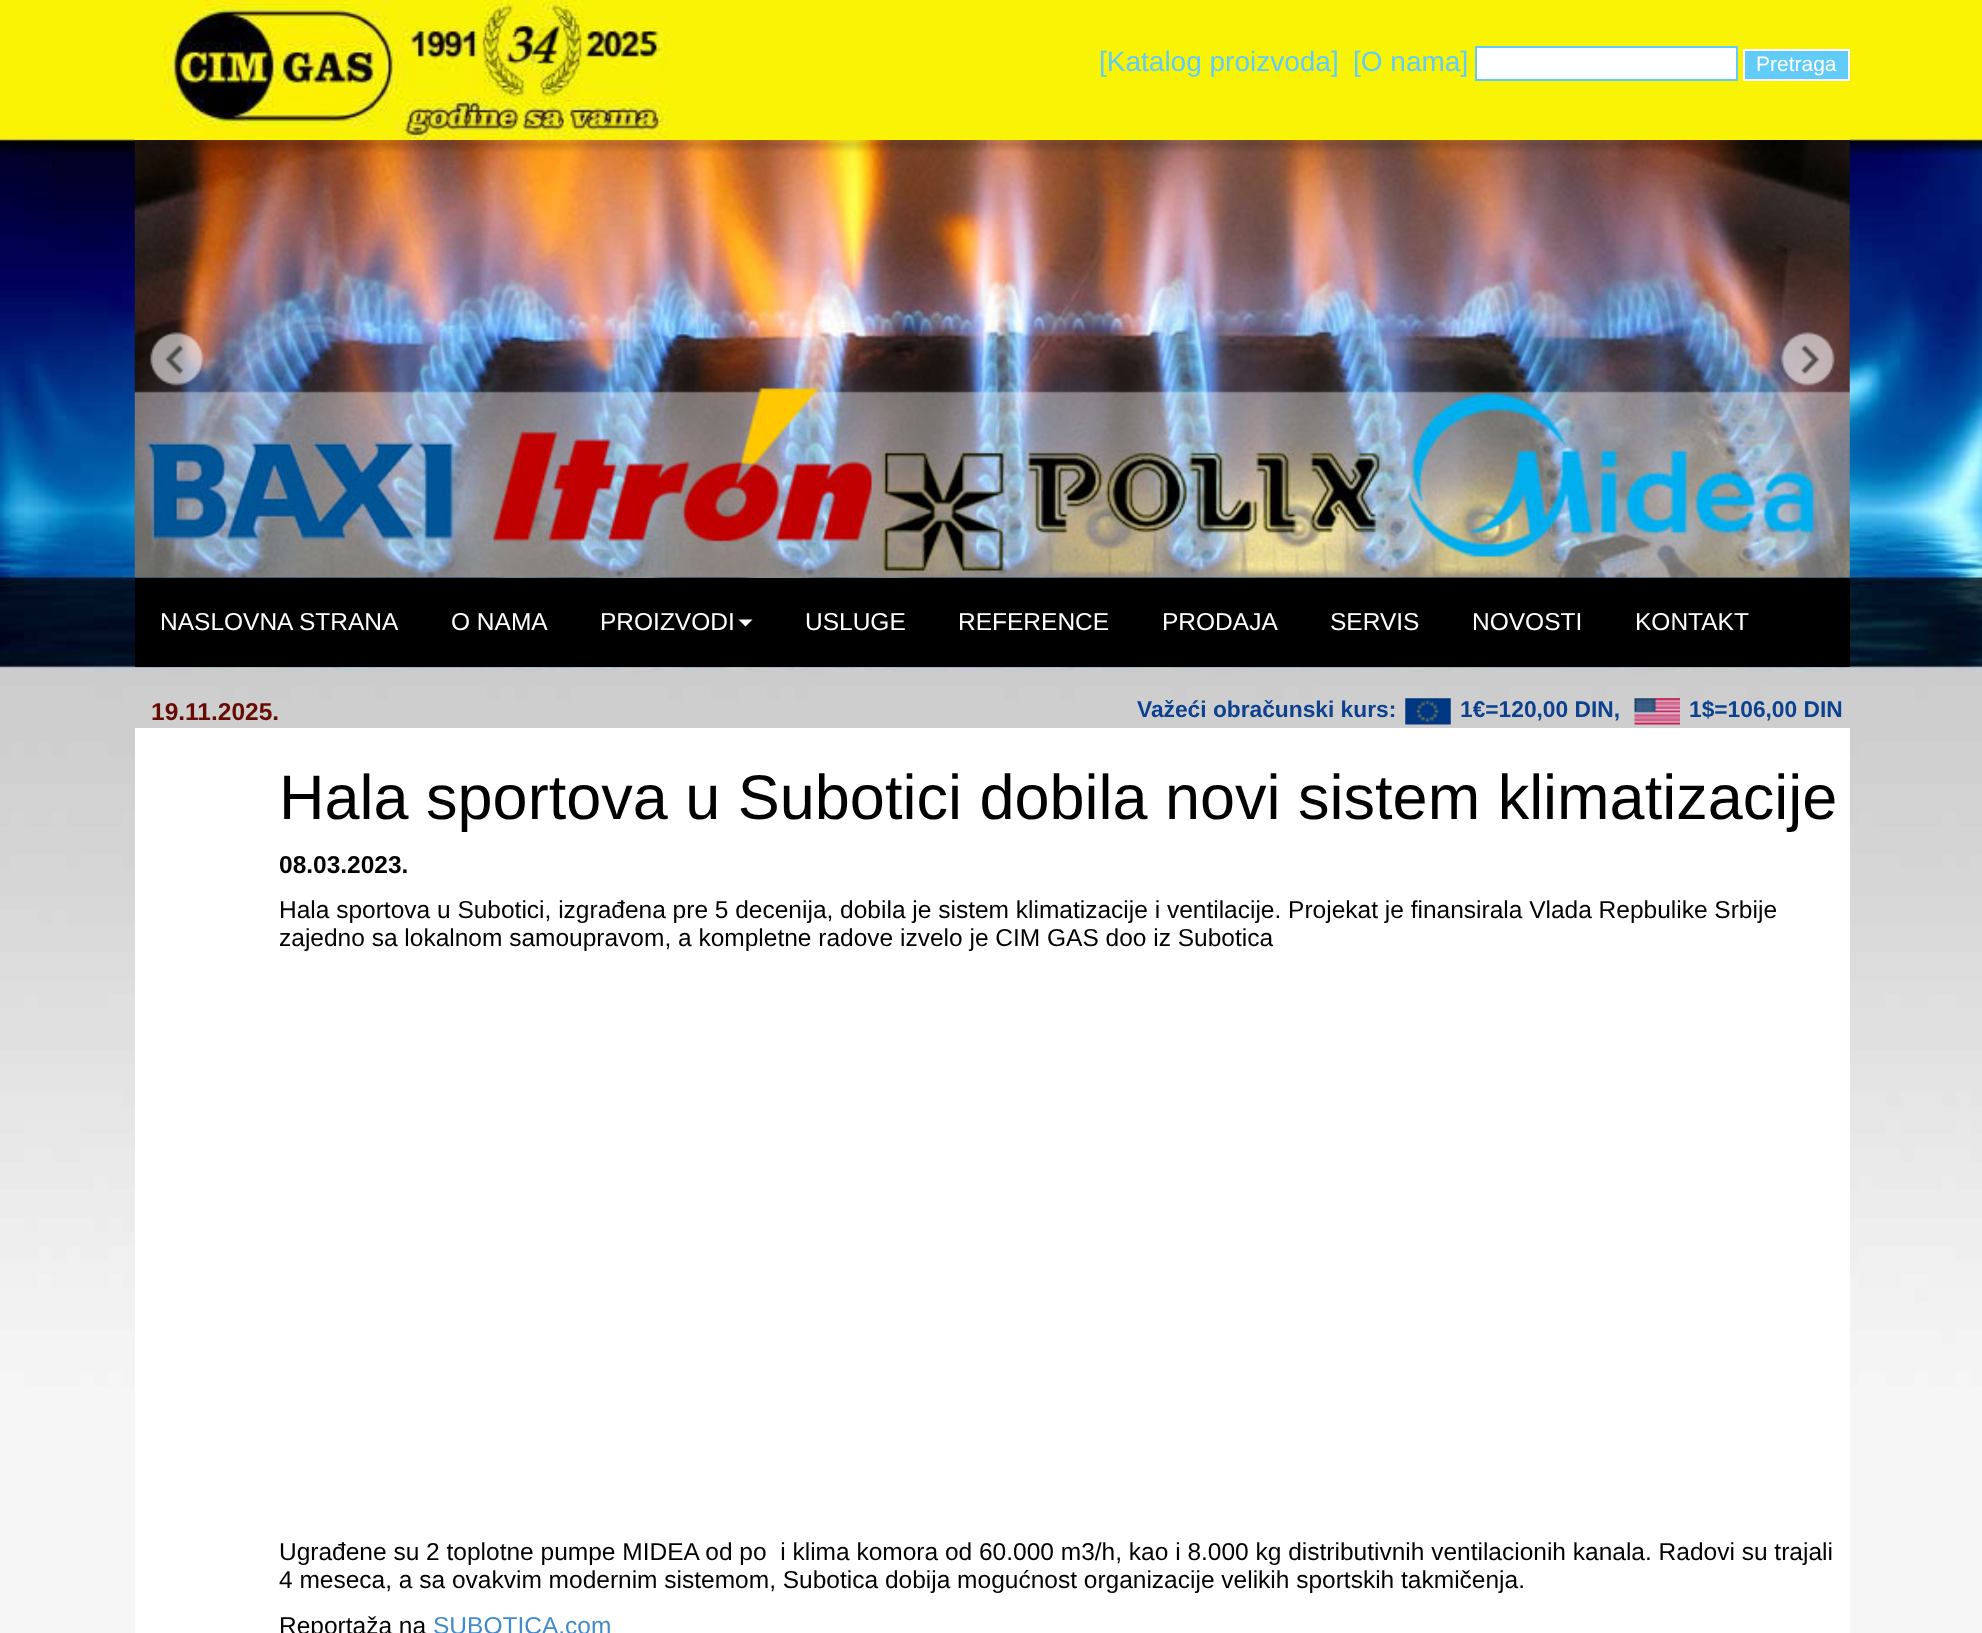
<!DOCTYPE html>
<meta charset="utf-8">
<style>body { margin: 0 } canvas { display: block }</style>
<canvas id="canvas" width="1982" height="1633"></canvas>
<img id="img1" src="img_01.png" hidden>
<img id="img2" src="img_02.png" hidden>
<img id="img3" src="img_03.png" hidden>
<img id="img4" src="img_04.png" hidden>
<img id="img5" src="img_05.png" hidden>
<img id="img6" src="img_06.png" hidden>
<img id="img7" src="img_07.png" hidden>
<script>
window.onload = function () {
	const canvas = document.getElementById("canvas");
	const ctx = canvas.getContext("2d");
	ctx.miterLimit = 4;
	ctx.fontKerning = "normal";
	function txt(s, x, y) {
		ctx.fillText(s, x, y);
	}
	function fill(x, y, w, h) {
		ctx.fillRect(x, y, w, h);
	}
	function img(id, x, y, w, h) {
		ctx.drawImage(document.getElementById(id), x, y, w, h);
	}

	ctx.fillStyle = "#FFFFFF";
	fill(0, 0, 1982, 1633);
	img("img1", 0, 0, 1982, 1633);
	img("img2", 134, 0, 1716, 140);
	ctx.beginPath();
	ctx.rect(1476, 47, 261, 33);
	ctx.fill();
	ctx.strokeStyle = "#61CCF8";
	ctx.lineWidth = 2;
	ctx.stroke();
	ctx.fillStyle = "#61CCF8";
	ctx.beginPath();
	ctx.rect(1744, 50, 105, 30);
	ctx.fill();
	ctx.strokeStyle = "#FFFFFF";
	ctx.stroke();
	img("img3", 134, 140, 1716, 438);
	img("img4", 150, 332, 54, 54);
	img("img5", 1781, 332, 54, 54);
	ctx.fillStyle = "#000000";
	fill(135, 578, 1715, 89);
	ctx.fillStyle = "#FFFFFF";
	ctx.beginPath();
	ctx.moveTo(738.5, 619.5);
	ctx.lineTo(752.5, 619.5);
	ctx.lineTo(745.5, 626.5);
	ctx.closePath();
	ctx.fill();
	img("img6", 1405, 698, 46, 27);
	img("img7", 1634, 698, 46, 27);
	fill(135, 728, 1715, 905);
	ctx.font = "28px Liberation Sans";
	ctx.fillStyle = "#61CCF8";
	txt("[Katalog proizvoda]", 1099, 71);
	txt("[O nama]", 1353, 71);
	ctx.font = "21px Liberation Sans";
	ctx.fillStyle = "#FFFFFF";
	txt("Pretraga", 1756, 71);
	ctx.font = "24.5px Liberation Sans";
	txt("NASLOVNA STRANA", 160, 630);
	txt("O NAMA", 451, 630);
	txt("PROIZVODI", 600, 630);
	txt("USLUGE", 805, 630);
	txt("REFERENCE", 958, 630);
	txt("PRODAJA", 1162, 630);
	txt("SERVIS", 1330, 630);
	txt("NOVOSTI", 1472, 630);
	txt("KONTAKT", 1635, 630);
	ctx.font = "bold 24.5px Liberation Sans";
	ctx.fillStyle = "#670B02";
	txt("19.11.2025.", 151, 720);
	ctx.font = "bold 22.75px Liberation Sans";
	ctx.fillStyle = "#0C418F";
	txt("Važeći obračunski kurs:", 1137, 717);
	txt("1€=120,00 DIN,", 1460, 717);
	txt("1$=106,00 DIN", 1689, 717);
	ctx.font = "63px Liberation Sans";
	ctx.fillStyle = "#000000";
	txt("Hala sportova u Subotici dobila novi sistem klimatizacije", 279, 819);
	ctx.font = "bold 24.5px Liberation Sans";
	txt("08.03.2023.", 279, 873);
	ctx.font = "24.5px Liberation Sans";
	txt("Hala sportova u Subotici, izgrađena pre 5 decenija, dobila je sistem klimatizacije i ventilacije. Projekat je finansirala Vlada Repbulike Srbije", 279, 918);
	txt("zajedno sa lokalnom samoupravom, a kompletne radove izvelo je CIM GAS doo iz Subotica", 279, 946);
	txt("Ugrađene su 2 toplotne pumpe MIDEA od po  i klima komora od 60.000 m3/h, kao i 8.000 kg distributivnih ventilacionih kanala. Radovi su trajali", 279, 1560);
	txt("4 meseca, a sa ovakvim modernim sistemom, Subotica dobija mogućnost organizacije velikih sportskih takmičenja.", 279, 1588);
	txt("Reportaža na", 279, 1634);
	ctx.fillStyle = "#428BCA";
	txt("SUBOTICA.com", 433, 1634);
};
</script>
